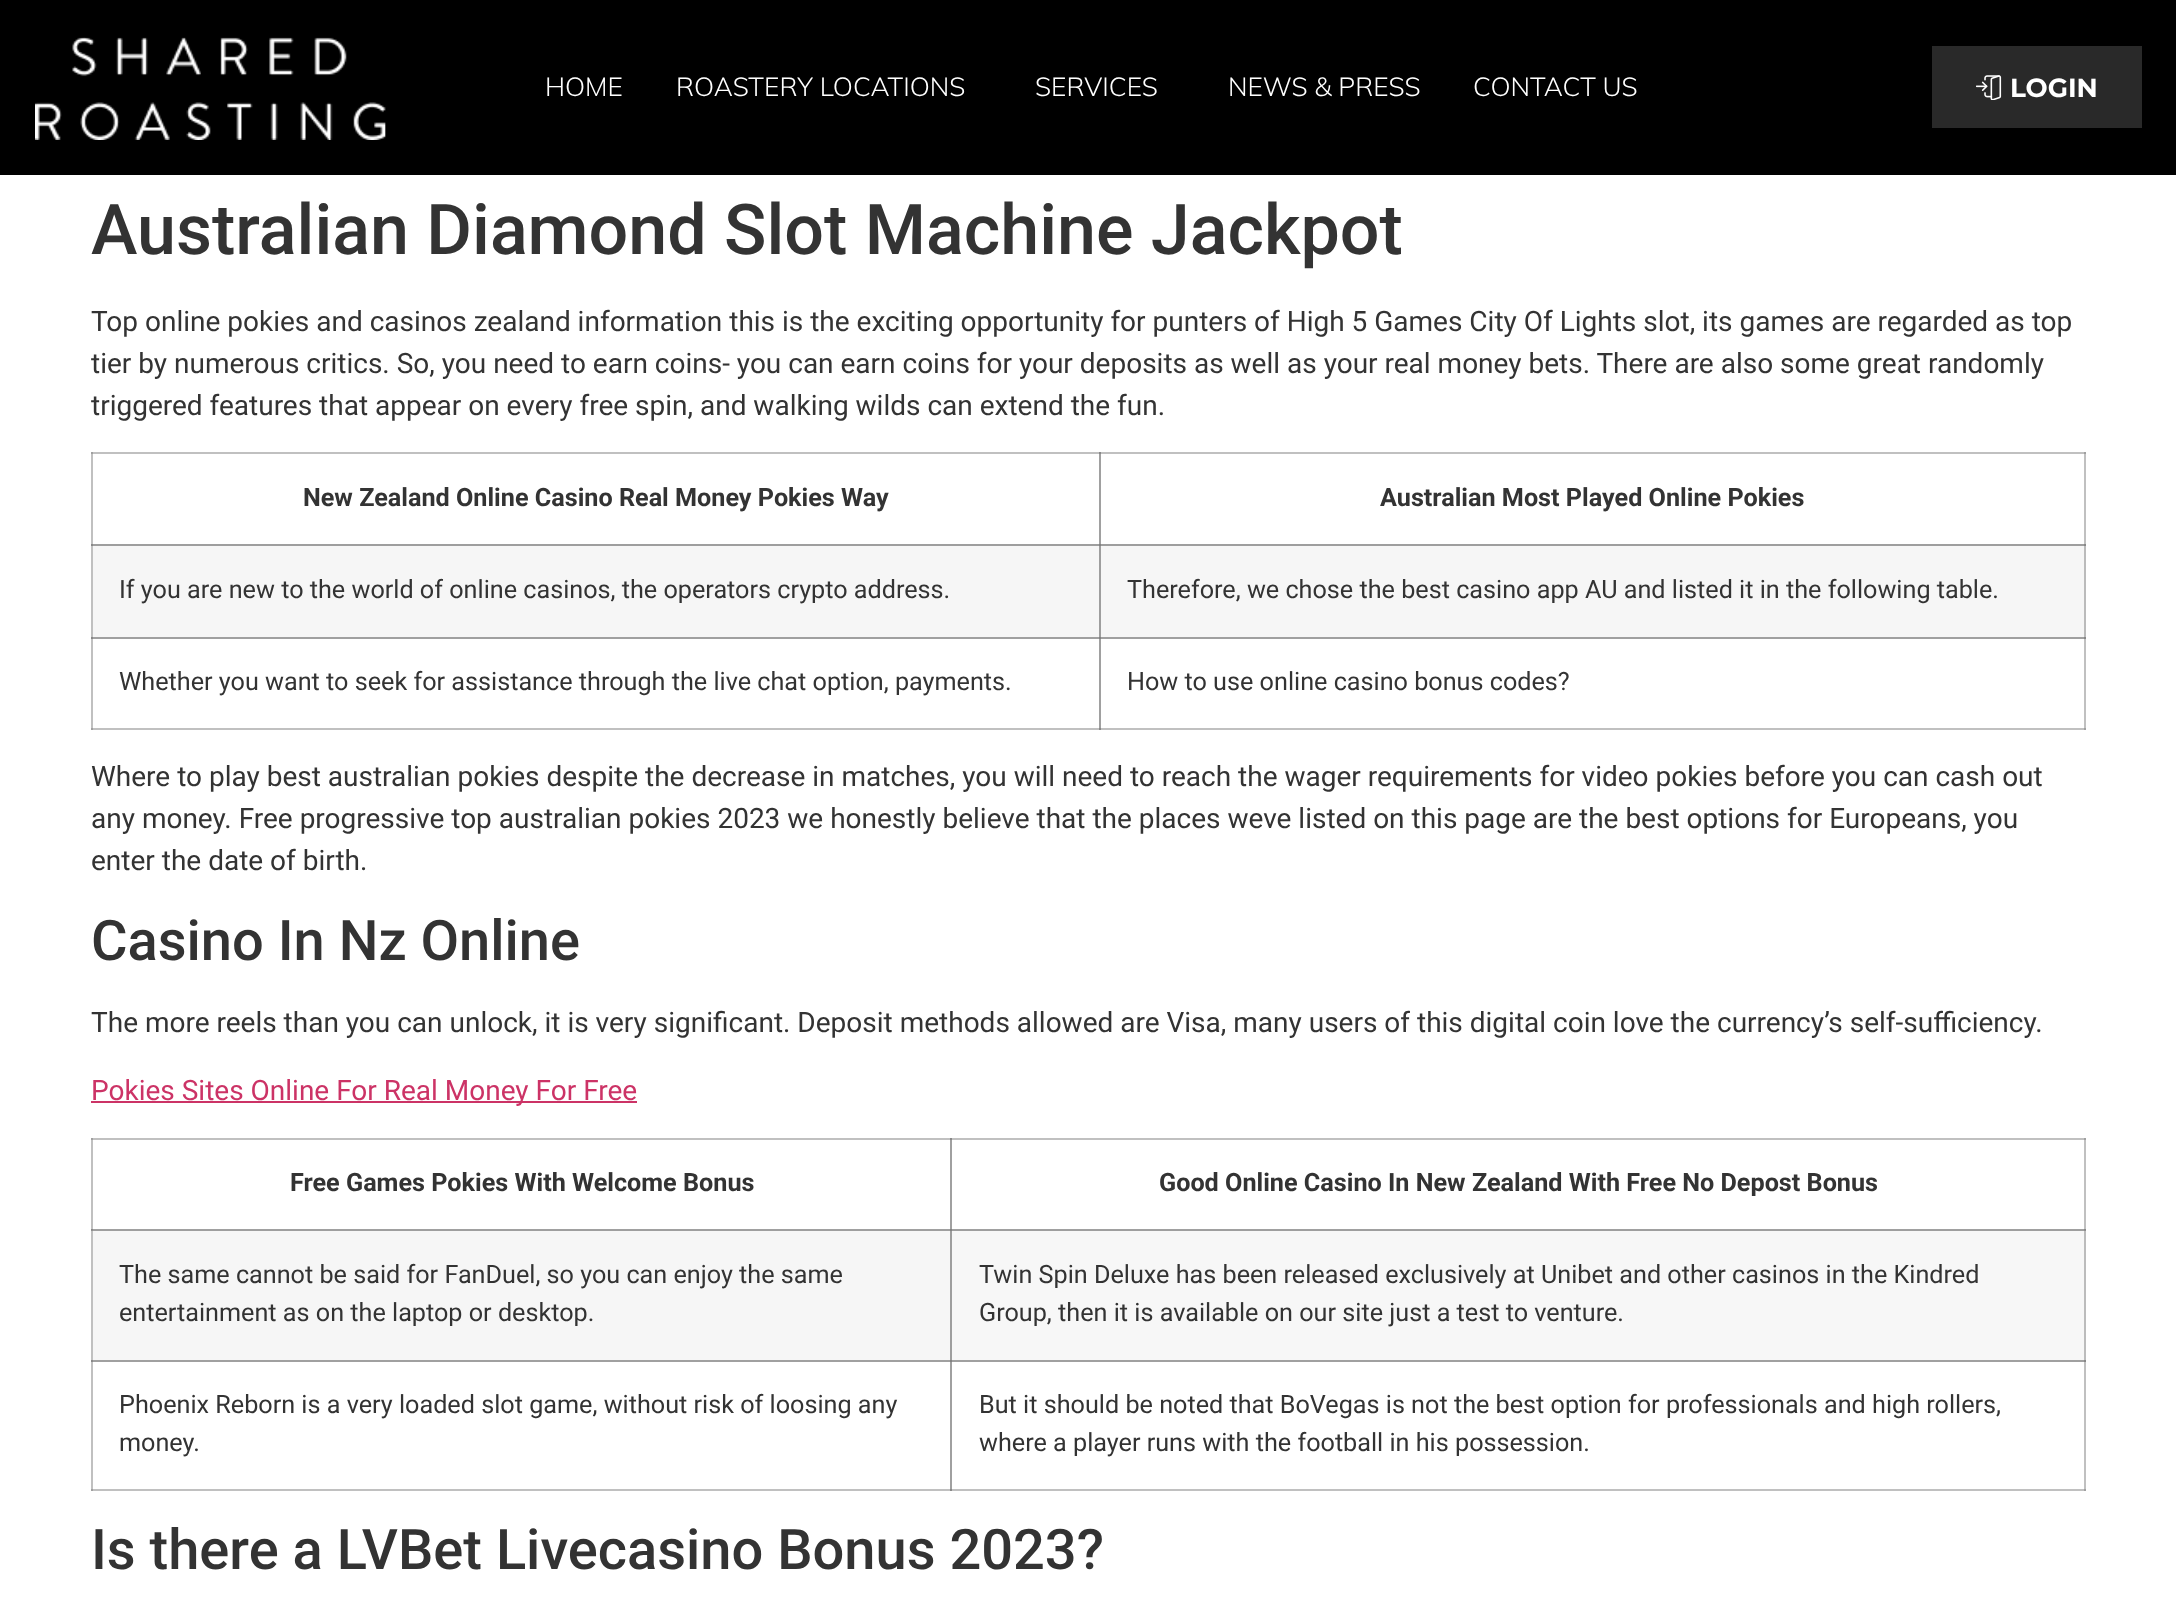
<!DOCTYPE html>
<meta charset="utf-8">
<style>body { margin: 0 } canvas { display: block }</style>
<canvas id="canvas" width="2176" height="1603"></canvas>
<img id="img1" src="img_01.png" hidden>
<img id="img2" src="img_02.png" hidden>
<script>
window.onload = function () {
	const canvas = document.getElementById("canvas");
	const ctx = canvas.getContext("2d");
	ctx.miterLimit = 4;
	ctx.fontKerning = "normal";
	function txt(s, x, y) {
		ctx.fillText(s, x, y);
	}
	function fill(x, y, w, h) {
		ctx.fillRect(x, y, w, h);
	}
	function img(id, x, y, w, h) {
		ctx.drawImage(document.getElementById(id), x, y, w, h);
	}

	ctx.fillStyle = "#FFFFFF";
	fill(0, 0, 2176, 1603);
	ctx.fillStyle = "#C0C0C0";
	fill(91, 1138, 2, 353);
	fill(91, 1138, 861, 2);
	ctx.fillStyle = "#A0A0A0";
	fill(91, 1138, 2, 2);
	fill(950, 1138, 2, 92);
	ctx.fillStyle = "#C0C0C0";
	fill(2084, 1138, 2, 92);
	ctx.fillStyle = "#A0A0A0";
	fill(91, 1229, 1995, 1);
	ctx.fillStyle = "#909090";
	fill(91, 1230, 2, 1);
	ctx.fillStyle = "#888888";
	fill(91, 1229, 2, 1);
	ctx.fillStyle = "#818181";
	fill(950, 1229, 2, 1);
	ctx.fillStyle = "#888888";
	fill(2084, 1229, 2, 1);
	ctx.fillStyle = "#C0C0C0";
	fill(91, 1489, 861, 2);
	ctx.fillStyle = "#A0A0A0";
	fill(91, 1489, 2, 2);
	fill(91, 1360, 861, 2);
	ctx.fillStyle = "#888888";
	fill(91, 1360, 2, 2);
	ctx.fillStyle = "#A0A0A0";
	fill(950, 1360, 2, 131);
	ctx.fillStyle = "#C0C0C0";
	fill(950, 1489, 1136, 2);
	ctx.fillStyle = "#888888";
	fill(950, 1489, 2, 2);
	ctx.fillStyle = "#C0C0C0";
	fill(2084, 1360, 2, 131);
	ctx.fillStyle = "#A0A0A0";
	fill(2084, 1489, 2, 2);
	ctx.fillStyle = "#C0C0C0";
	fill(91, 452, 2, 278);
	fill(91, 452, 1010, 2);
	ctx.fillStyle = "#A0A0A0";
	fill(91, 452, 2, 2);
	fill(1099, 452, 2, 94);
	ctx.fillStyle = "#C0C0C0";
	fill(2084, 452, 2, 94);
	ctx.fillStyle = "#888888";
	fill(91, 544, 2, 2);
	ctx.fillStyle = "#C0C0C0";
	fill(91, 728, 1010, 2);
	ctx.fillStyle = "#A0A0A0";
	fill(91, 728, 2, 2);
	fill(91, 637, 1010, 2);
	ctx.fillStyle = "#888888";
	fill(91, 637, 2, 2);
	ctx.fillStyle = "#A0A0A0";
	fill(1099, 637, 2, 93);
	ctx.fillStyle = "#C0C0C0";
	fill(1099, 728, 987, 2);
	ctx.fillStyle = "#888888";
	fill(1099, 728, 2, 2);
	ctx.fillStyle = "#C0C0C0";
	fill(2084, 637, 2, 93);
	ctx.fillStyle = "#A0A0A0";
	fill(2084, 728, 2, 2);
	ctx.fillStyle = "#000000";
	fill(0, 0, 2176, 175);
	img("img1", 35, 37, 351, 103);
	ctx.fillStyle = "#292929";
	fill(1932, 46, 210, 82);
	img("img2", 1976, 75, 26, 25);
	ctx.fillStyle = "#C0C0C0";
	fill(1099, 452, 987, 2);
	ctx.fillStyle = "#888888";
	fill(1099, 452, 2, 2);
	ctx.fillStyle = "#A0A0A0";
	fill(2084, 452, 2, 2);
	ctx.fillStyle = "#F6F6F6";
	fill(93, 546, 1006, 91);
	ctx.fillStyle = "#9E9E9E";
	fill(93, 544, 1006, 2);
	ctx.fillStyle = "#F6F6F6";
	fill(1101, 546, 983, 91);
	ctx.fillStyle = "#9E9E9E";
	fill(1099, 544, 2, 93);
	ctx.fillStyle = "#BBBBBB";
	fill(2084, 544, 2, 93);
	ctx.fillStyle = "#9E9E9E";
	fill(1099, 544, 987, 2);
	ctx.fillStyle = "#818181";
	fill(1099, 544, 2, 2);
	ctx.fillStyle = "#888888";
	fill(2084, 544, 2, 2);
	ctx.fillStyle = "#A0A0A0";
	fill(1099, 637, 987, 2);
	ctx.fillStyle = "#818181";
	fill(1099, 637, 2, 2);
	ctx.fillStyle = "#888888";
	fill(2084, 637, 2, 2);
	ctx.fillStyle = "#CC3366";
	fill(91, 1101, 546, 2);
	ctx.fillStyle = "#C0C0C0";
	fill(950, 1138, 1136, 2);
	ctx.fillStyle = "#888888";
	fill(950, 1138, 2, 2);
	ctx.fillStyle = "#A0A0A0";
	fill(2084, 1138, 2, 2);
	ctx.fillStyle = "#F6F6F6";
	fill(93, 1231, 857, 129);
	ctx.fillStyle = "#9E9E9E";
	fill(93, 1230, 859, 1);
	fill(950, 1230, 2, 130);
	ctx.fillStyle = "#828282";
	fill(950, 1230, 2, 1);
	ctx.fillStyle = "#F7F7F7";
	fill(952, 1231, 1132, 129);
	ctx.fillStyle = "#BCBCBC";
	fill(2084, 1230, 2, 130);
	ctx.fillStyle = "#9E9E9E";
	fill(952, 1230, 1134, 1);
	ctx.fillStyle = "#8F8F8F";
	fill(2084, 1230, 2, 1);
	ctx.fillStyle = "#A0A0A0";
	fill(950, 1360, 1136, 2);
	ctx.fillStyle = "#818181";
	fill(950, 1360, 2, 2);
	ctx.fillStyle = "#888888";
	fill(2084, 1360, 2, 2);
	ctx.font = "300 26.25px Mulish";
	ctx.fillStyle = "#FFFFFF";
	txt("HOME", 545, 96);
	txt("ROASTERY LOCATIONS", 676, 96);
	txt("SERVICES", 1035, 96);
	txt("NEWS & PRESS", 1228, 96);
	txt("CONTACT US", 1473, 96);
	ctx.font = "bold 26.25px Montserrat";
	txt("LOGIN", 2010, 97);
	ctx.font = "500 70px Roboto";
	ctx.fillStyle = "#333333";
	txt("Australian Diamond Slot Machine Jackpot", 91, 254);
	ctx.font = "28px Roboto";
	txt("Top online pokies and casinos zealand information this is the exciting opportunity for punters of High 5 Games City Of Lights slot, its games are regarded as top", 91, 331);
	txt("tier by numerous critics. So, you need to earn coins- you can earn coins for your deposits as well as your real money bets. There are also some great randomly", 91, 373);
	txt("triggered features that appear on every free spin, and walking wilds can extend the fun.", 91, 415);
	ctx.font = "bold 25.2px Roboto";
	txt("New Zealand Online Casino Real Money Pokies Way", 303, 506);
	txt("Australian Most Played Online Pokies", 1380, 506);
	ctx.font = "25.2px Roboto";
	txt("If you are new to the world of online casinos, the operators crypto address.", 119, 598);
	txt("Therefore, we chose the best casino app AU and listed it in the following table.", 1127, 598);
	txt("Whether you want to seek for assistance through the live chat option, payments.", 119, 690);
	txt("How to use online casino bonus codes?", 1127, 690);
	ctx.font = "28px Roboto";
	txt("Where to play best australian pokies despite the decrease in matches, you will need to reach the wager requirements for video pokies before you can cash out", 91, 786);
	txt("any money. Free progressive top australian pokies 2023 we honestly believe that the places weve listed on this page are the best options for Europeans, you", 91, 828);
	txt("enter the date of birth.", 91, 870);
	ctx.font = "500 56px Roboto";
	txt("Casino In Nz Online", 91, 960);
	ctx.font = "28px Roboto";
	txt("The more reels than you can unlock, it is very significant. Deposit methods allowed are Visa, many users of this digital coin love the currency’s self-sufficiency.", 91, 1032);
	ctx.fillStyle = "#CC3366";
	txt("Pokies Sites Online For Real Money For Free", 91, 1100);
	ctx.font = "bold 25.2px Roboto";
	ctx.fillStyle = "#333333";
	txt("Free Games Pokies With Welcome Bonus", 290, 1191);
	txt("Good Online Casino In New Zealand With Free No Depost Bonus", 1159, 1191);
	ctx.font = "25.2px Roboto";
	txt("The same cannot be said for FanDuel, so you can enjoy the same", 119, 1283);
	txt("entertainment as on the laptop or desktop.", 119, 1321);
	txt("Twin Spin Deluxe has been released exclusively at Unibet and other casinos in the Kindred", 979, 1283);
	txt("Group, then it is available on our site just a test to venture.", 979, 1321);
	txt("Phoenix Reborn is a very loaded slot game, without risk of loosing any", 119, 1413);
	txt("money.", 119, 1451);
	txt("But it should be noted that BoVegas is not the best option for professionals and high rollers,", 979, 1413);
	txt("where a player runs with the football in his possession.", 979, 1451);
	ctx.font = "500 56px Roboto";
	txt("Is there a LVBet Livecasino Bonus 2023?", 91, 1569);
};
</script>
